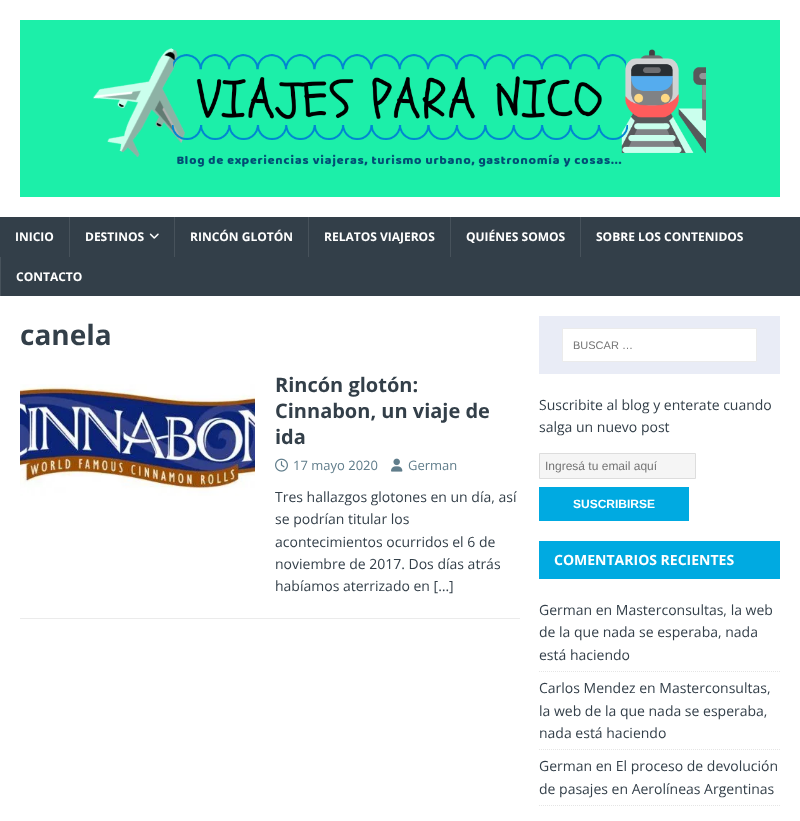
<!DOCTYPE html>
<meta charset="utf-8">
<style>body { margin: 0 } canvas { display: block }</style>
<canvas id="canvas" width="800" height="821"></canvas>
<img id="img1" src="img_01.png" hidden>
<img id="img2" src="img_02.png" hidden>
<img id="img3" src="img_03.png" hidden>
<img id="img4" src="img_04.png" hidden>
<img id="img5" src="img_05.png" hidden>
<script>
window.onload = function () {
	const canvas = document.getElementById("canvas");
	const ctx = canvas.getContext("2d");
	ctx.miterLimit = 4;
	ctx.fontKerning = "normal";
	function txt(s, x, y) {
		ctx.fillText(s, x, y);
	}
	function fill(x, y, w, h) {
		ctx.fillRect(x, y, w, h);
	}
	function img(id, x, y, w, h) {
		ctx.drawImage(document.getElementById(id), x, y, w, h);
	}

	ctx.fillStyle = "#FFFFFF";
	fill(0, 0, 800, 821);
	img("img1", 20, 20, 760, 177);
	ctx.fillStyle = "#333F49";
	fill(0, 217, 800, 79);
	ctx.fillStyle = "#47525B";
	fill(69, 217, 1, 40);
	img("img2", 149, 233, 10, 6);
	fill(174, 217, 1, 40);
	fill(308, 217, 1, 40);
	fill(450, 217, 1, 40);
	fill(580, 217, 1, 40);
	fill(0, 257, 1, 39);
	ctx.fillStyle = "#EBEBEB";
	fill(20, 618, 500, 1);
	img("img3", 20, 384, 235, 112);
	img("img4", 275, 458, 13, 14);
	img("img5", 391, 458, 12, 14);
	ctx.fillStyle = "#E9ECF6";
	fill(539, 316, 241, 58);
	ctx.fillStyle = "#FFFFFF";
	ctx.beginPath();
	ctx.rect(562.5, 328.5, 194, 33);
	ctx.fill();
	ctx.strokeStyle = "#EBEBEB";
	ctx.stroke();
	ctx.fillStyle = "#F5F5F5";
	ctx.beginPath();
	ctx.rect(539.5, 453.5, 156, 25);
	ctx.fill();
	ctx.strokeStyle = "#DDDDDD";
	ctx.stroke();
	ctx.fillStyle = "#00AAE1";
	fill(539, 487, 150, 34);
	fill(539, 541, 241, 38);
	ctx.beginPath();
	ctx.moveTo(539, 671.5);
	ctx.lineTo(780, 671.5);
	ctx.strokeStyle = "#E5E5E5";
	ctx.setLineDash([1, 1]);
	ctx.stroke();
	ctx.beginPath();
	ctx.moveTo(539, 749.5);
	ctx.lineTo(780, 749.5);
	ctx.stroke();
	ctx.beginPath();
	ctx.moveTo(539, 805.5);
	ctx.lineTo(780, 805.5);
	ctx.stroke();
	ctx.font = "bold 12px Open Sans";
	ctx.fillStyle = "#FFFFFF";
	txt("INICIO", 15, 241);
	txt("DESTINOS", 85, 241);
	txt("RINCÓN GLOTÓN", 190, 241);
	txt("RELATOS VIAJEROS", 324, 241);
	txt("QUIÉNES SOMOS", 466, 241);
	txt("SOBRE LOS CONTENIDOS", 596, 241);
	txt("CONTACTO", 16, 281);
	ctx.font = "bold 28px Open Sans";
	ctx.fillStyle = "#333F49";
	txt("canela", 20, 345);
	ctx.font = "bold 20px Open Sans";
	txt("Rincón glotón:", 275, 392);
	txt("Cinnabon, un viaje de", 275, 418);
	txt("ida", 275, 444);
	ctx.font = "13px Open Sans";
	ctx.fillStyle = "#607D8B";
	txt("17 mayo 2020", 293, 470);
	txt("German", 408, 470);
	ctx.font = "14px Open Sans";
	ctx.fillStyle = "#333F49";
	txt("Tres hallazgos glotones en un día, así", 275, 502);
	txt("se podrían titular los", 275, 524);
	txt("acontecimientos ocurridos el 6 de", 275, 547);
	txt("noviembre de 2017. Dos días atrás", 275, 569);
	txt("habíamos aterrizado en […]", 275, 591);
	ctx.font = "11px Liberation Sans";
	ctx.fillStyle = "#757575";
	txt("BUSCAR …", 573, 349);
	ctx.font = "14px Open Sans";
	ctx.fillStyle = "#333F49";
	txt("Suscribite al blog y enterate cuando", 539, 410);
	txt("salga un nuevo post", 539, 432);
	ctx.font = "12px Liberation Sans";
	ctx.fillStyle = "#757575";
	txt("Ingresá tu email aquí", 545, 470);
	ctx.font = "bold 12px Liberation Sans";
	ctx.fillStyle = "#FFFFFF";
	txt("SUSCRIBIRSE", 573, 508);
	ctx.font = "bold 14px Open Sans";
	txt("COMENTARIOS RECIENTES", 554, 565);
	ctx.font = "14px Open Sans";
	ctx.fillStyle = "#333F49";
	txt("German en Masterconsultas, la web", 539, 615);
	txt("de la que nada se esperaba, nada", 539, 637);
	txt("está haciendo", 539, 660);
	txt("Carlos Mendez en Masterconsultas,", 539, 693);
	txt("la web de la que nada se esperaba,", 539, 716);
	txt("nada está haciendo", 539, 738);
	txt("German en El proceso de devolución", 539, 771);
	txt("de pasajes en Aerolíneas Argentinas", 539, 794);
};
</script>
